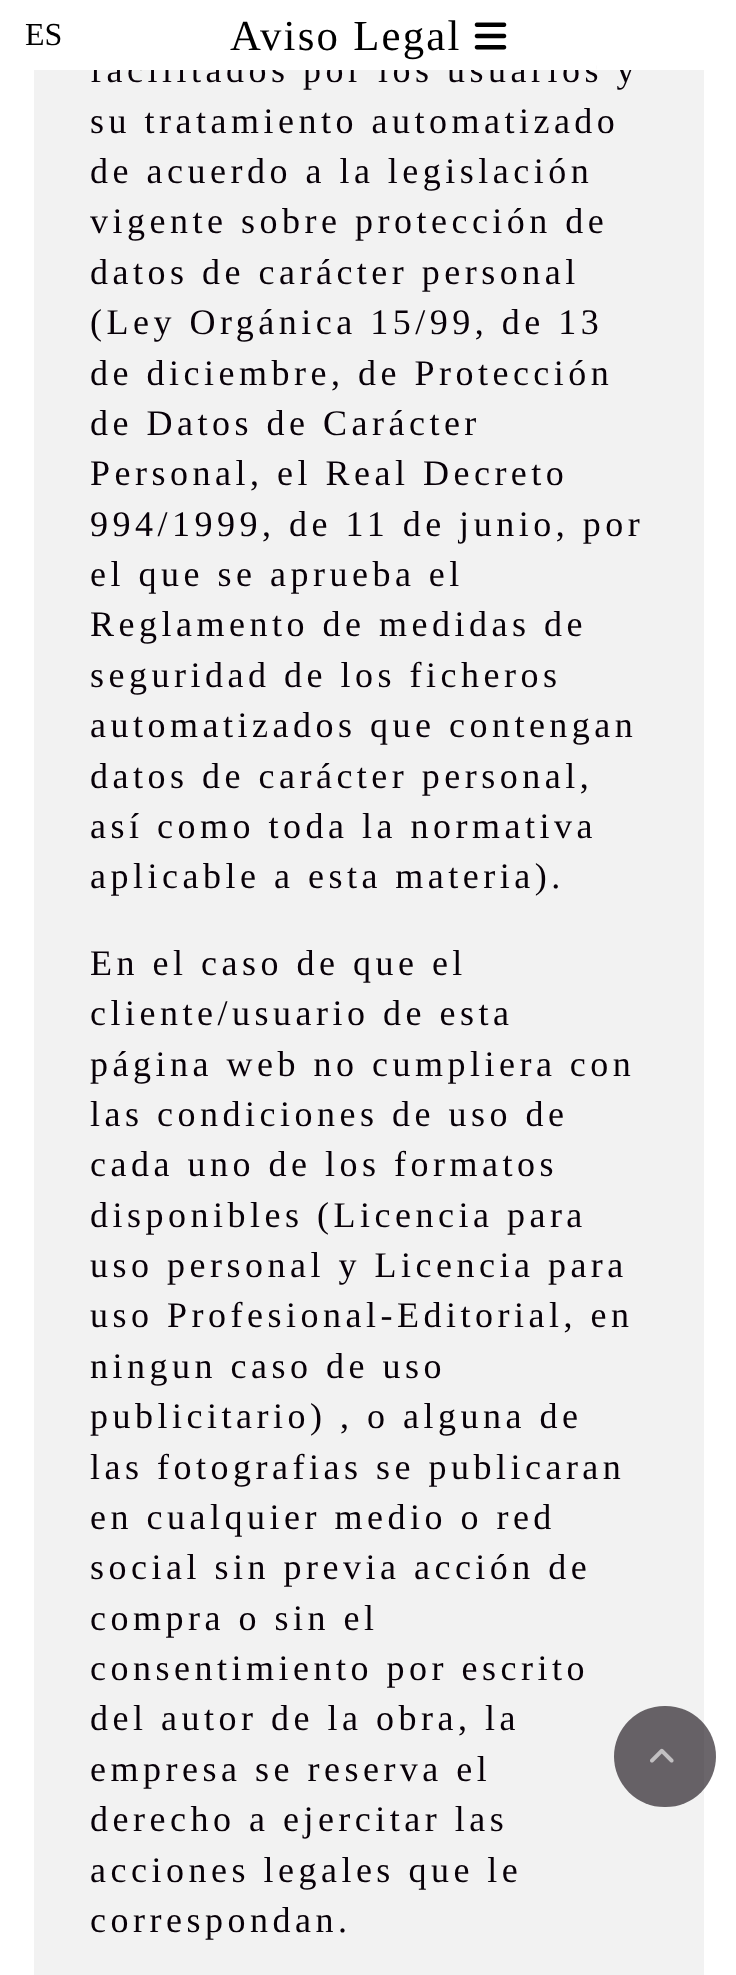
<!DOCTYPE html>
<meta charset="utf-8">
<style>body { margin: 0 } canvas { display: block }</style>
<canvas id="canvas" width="736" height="1975"></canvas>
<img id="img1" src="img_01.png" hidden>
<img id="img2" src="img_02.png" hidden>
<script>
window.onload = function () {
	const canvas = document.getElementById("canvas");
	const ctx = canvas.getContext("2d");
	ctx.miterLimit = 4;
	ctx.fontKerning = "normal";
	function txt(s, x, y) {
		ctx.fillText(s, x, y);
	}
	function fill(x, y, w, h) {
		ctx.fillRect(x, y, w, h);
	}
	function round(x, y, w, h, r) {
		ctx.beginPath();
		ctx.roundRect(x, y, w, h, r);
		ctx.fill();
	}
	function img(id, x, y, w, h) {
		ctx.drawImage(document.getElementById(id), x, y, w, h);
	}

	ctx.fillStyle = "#FFFFFF";
	fill(0, 0, 736, 1975);
	img("img1", 474, 22, 33, 28);
	ctx.fillStyle = "#F2F2F2";
	fill(34, 70, 670, 1905);
	ctx.fillStyle = "rgba(8, 0, 8, 0.6)";
	round(614, 1706, 102, 101, 50.5);
	img("img2", 650, 1748, 24, 15);
	ctx.font = "32px Liberation Serif";
	ctx.fillStyle = "#000000";
	txt("ES", 25, 45);
	ctx.letterSpacing = "4.5px";
	ctx.font = "36px Liberation Serif";
	ctx.fillStyle = "#080008";
	txt("facilitados por los usuarios y", 90, 82);
	ctx.fillStyle = "#FFFFFF";
	fill(616, 65, 19, 5);
	fill(128, 57, 468, 13);
	ctx.letterSpacing = "2.25px";
	ctx.font = "42.75px Liberation Serif";
	ctx.fillStyle = "#000000";
	txt("Aviso Legal", 230, 50);
	ctx.fillStyle = "#FFFFFF";
	fill(91, 56, 29, 14);
	ctx.letterSpacing = "4.5px";
	ctx.font = "36px Liberation Serif";
	ctx.fillStyle = "#080008";
	txt("su tratamiento automatizado", 90, 133);
	txt("de acuerdo a la legislación", 90, 183);
	txt("vigente sobre protección de", 90, 233);
	txt("datos de carácter personal", 90, 284);
	txt("(Ley Orgánica 15/99, de 13", 90, 334);
	txt("de diciembre, de Protección", 90, 385);
	txt("de Datos de Carácter", 90, 435);
	txt("Personal, el Real Decreto", 90, 485);
	txt("994/1999, de 11 de junio, por", 90, 536);
	txt("el que se aprueba el", 90, 586);
	txt("Reglamento de medidas de", 90, 636);
	txt("seguridad de los ficheros", 90, 687);
	txt("automatizados que contengan", 90, 737);
	txt("datos de carácter personal,", 90, 788);
	txt("así como toda la normativa", 90, 838);
	txt("aplicable a esta materia).", 90, 888);
	txt("En el caso de que el", 90, 975);
	txt("cliente/usuario de esta", 90, 1025);
	txt("página web no cumpliera con", 90, 1076);
	txt("las condiciones de uso de", 90, 1126);
	txt("cada uno de los formatos", 90, 1176);
	txt("disponibles (Licencia para", 90, 1227);
	txt("uso personal y Licencia para", 90, 1277);
	txt("uso Profesional-Editorial, en", 90, 1327);
	txt("ningun caso de uso", 90, 1378);
	txt("publicitario) , o alguna de", 90, 1428);
	txt("las fotografias se publicaran", 90, 1479);
	txt("en cualquier medio o red", 90, 1529);
	txt("social sin previa acción de", 90, 1579);
	txt("compra o sin el", 90, 1630);
	txt("consentimiento por escrito", 90, 1680);
	txt("del autor de la obra, la", 90, 1730);
	txt("empresa se reserva el", 90, 1781);
	txt("derecho a ejercitar las", 90, 1831);
	txt("acciones legales que le", 90, 1882);
	txt("correspondan.", 90, 1932);
};
</script>
